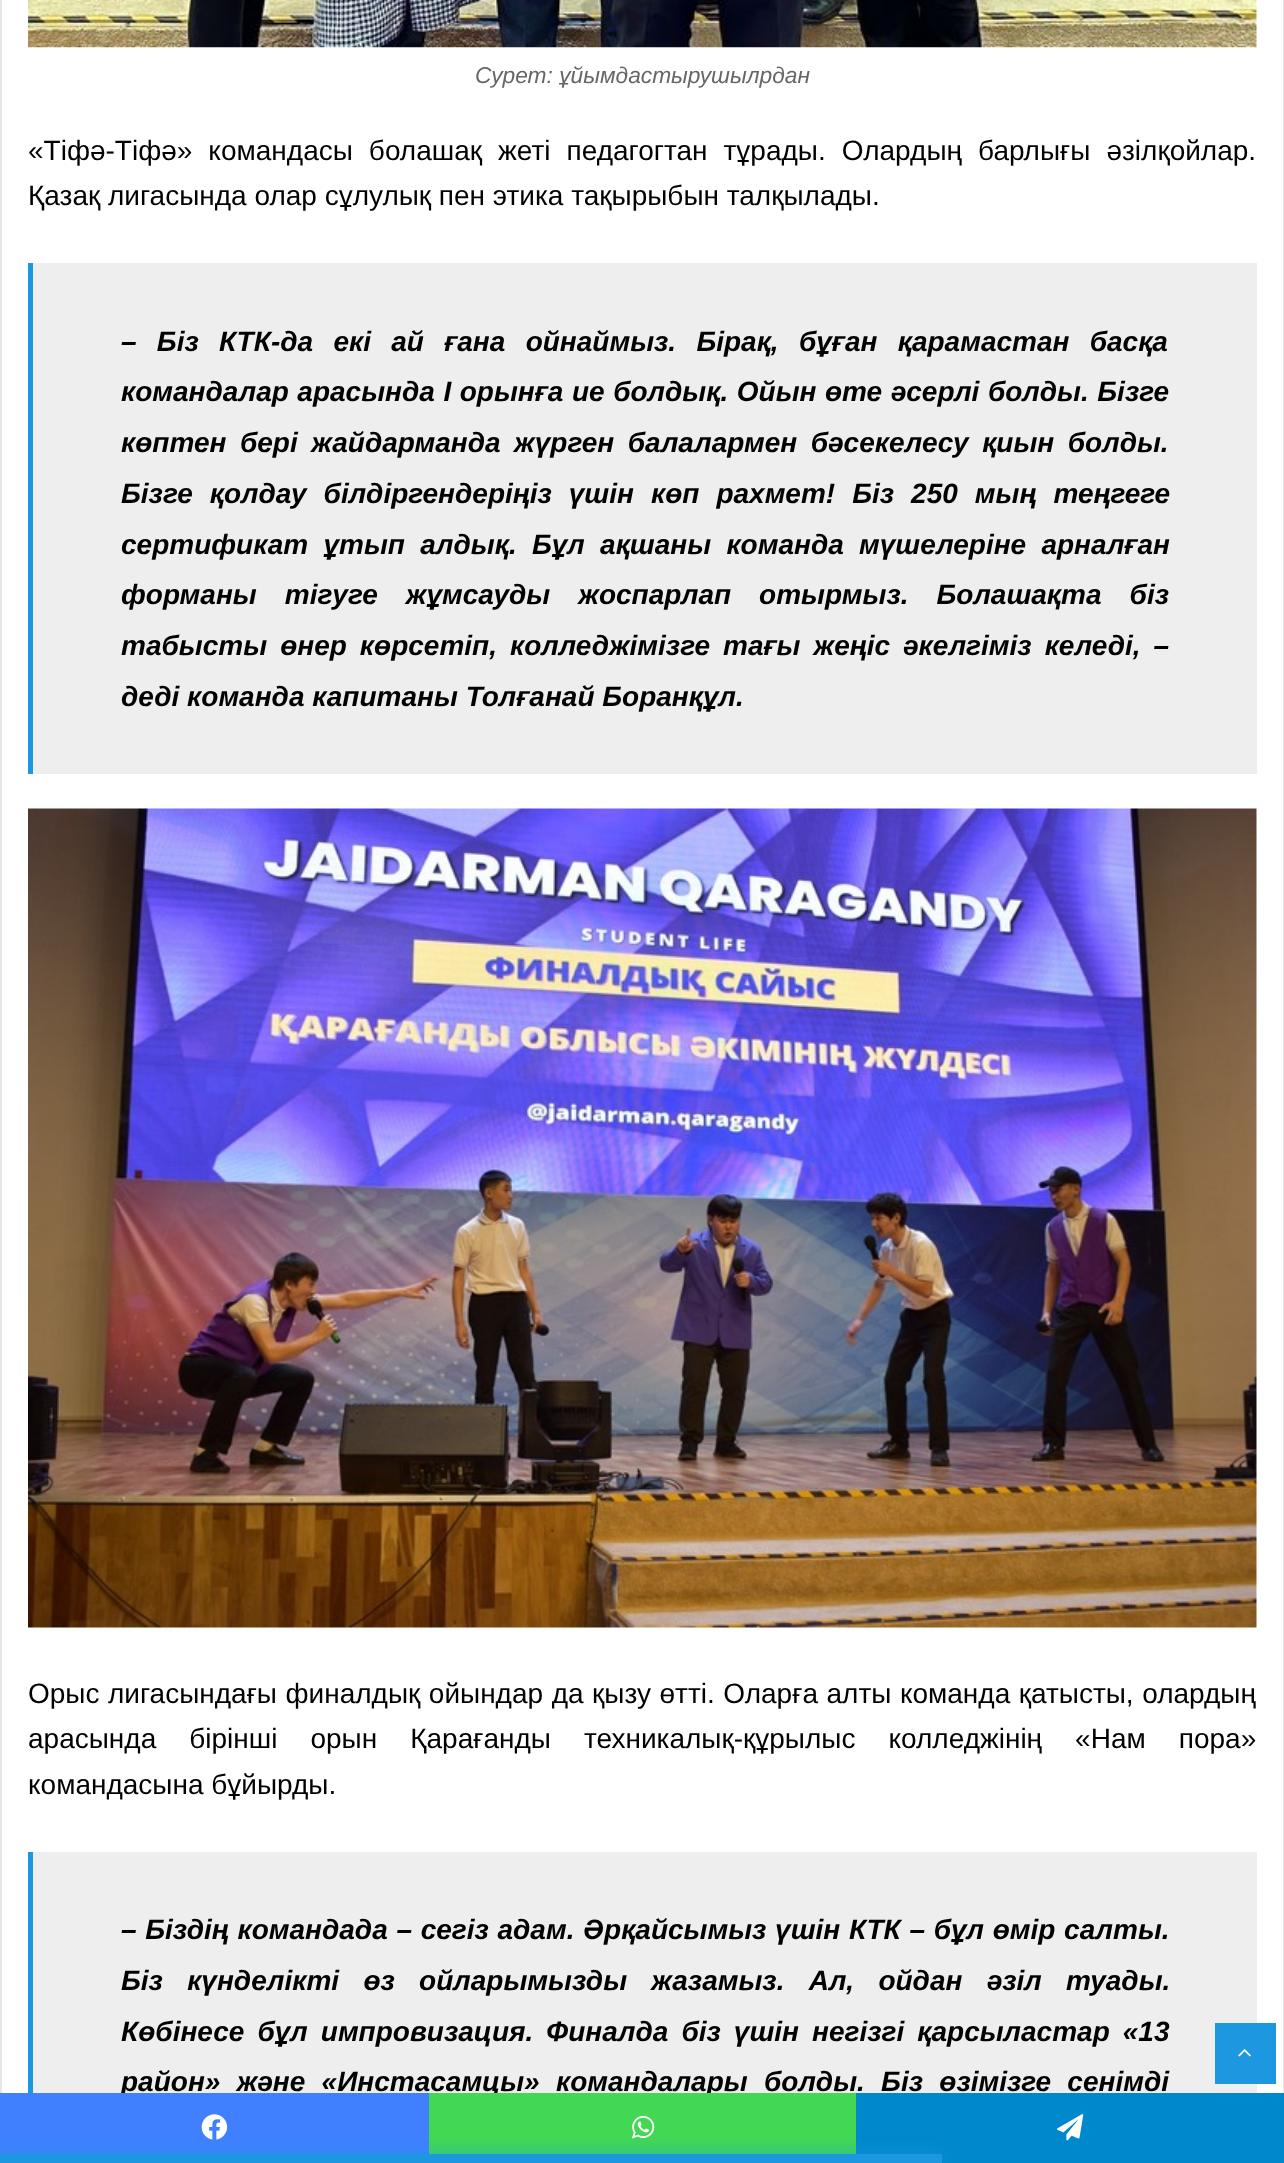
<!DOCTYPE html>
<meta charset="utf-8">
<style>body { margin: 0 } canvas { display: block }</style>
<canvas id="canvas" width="1284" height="2163"></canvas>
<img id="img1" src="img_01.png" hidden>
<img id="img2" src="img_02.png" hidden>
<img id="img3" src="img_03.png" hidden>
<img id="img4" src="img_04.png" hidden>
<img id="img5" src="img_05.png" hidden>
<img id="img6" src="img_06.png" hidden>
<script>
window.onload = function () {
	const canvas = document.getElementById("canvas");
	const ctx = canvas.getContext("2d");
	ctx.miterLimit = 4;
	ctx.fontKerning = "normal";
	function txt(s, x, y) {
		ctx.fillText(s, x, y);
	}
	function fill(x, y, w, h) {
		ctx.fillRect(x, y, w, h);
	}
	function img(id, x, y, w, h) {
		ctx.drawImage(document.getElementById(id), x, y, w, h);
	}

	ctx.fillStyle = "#FFFFFF";
	fill(0, 0, 1284, 2163);
	ctx.strokeStyle = "#E6E6E6";
	ctx.lineWidth = 2;
	ctx.strokeRect(1, -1, 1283, 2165);
	img("img1", 28, 0, 1229, 48);
	ctx.fillStyle = "#EEEEEE";
	fill(33, 263, 1224, 511);
	ctx.fillStyle = "#1B98E0";
	fill(28, 263, 5, 511);
	img("img2", 28, 808, 1229, 820);
	ctx.fillStyle = "#EEEEEE";
	fill(33, 1852, 1224, 241);
	ctx.fillStyle = "#1B98E0";
	fill(28, 1852, 5, 241);
	fill(1215, 2023, 61, 61);
	img("img3", 1238, 2049, 13, 8);
	ctx.font = "italic 22.75px Liberation Sans";
	ctx.fillStyle = "#666666";
	txt("Сурет: ұйымдастырушылрдан", 475, 83);
	ctx.wordSpacing = "8.25px";
	ctx.font = "28px Liberation Sans";
	ctx.fillStyle = "#000000";
	txt("«Тіфә-Тіфә» командасы болашақ жеті педагогтан тұрады. Олардың барлығы әзілқойлар.", 28, 160);
	ctx.wordSpacing = "0px";
	txt("Қазақ лигасында олар сұлулық пен этика тақырыбын талқылады.", 28, 205);
	ctx.wordSpacing = "12.5px";
	ctx.font = "italic bold 28px Liberation Sans";
	txt("– Біз КТК-да екі ай ғана ойнаймыз. Бірақ, бұған қарамастан басқа", 121, 351);
	ctx.wordSpacing = "0.75px";
	txt("командалар арасында І орынға ие болдық. Ойын өте әсерлі болды. Бізге", 121, 401);
	ctx.wordSpacing = "5.75px";
	txt("көптен бері жайдарманда жүрген балалармен бәсекелесу қиын болды.", 121, 452);
	ctx.wordSpacing = "9.25px";
	txt("Бізге қолдау білдіргендеріңіз үшін көп рахмет! Біз 250 мың теңгеге", 121, 503);
	ctx.wordSpacing = "7.5px";
	txt("сертификат ұтып алдық. Бұл ақшаны команда мүшелеріне арналған", 121, 554);
	ctx.wordSpacing = "20.25px";
	txt("форманы тігуге жұмсауды жоспарлап отырмыз. Болашақта біз", 121, 604);
	ctx.wordSpacing = "5.25px";
	txt("табысты өнер көрсетіп, колледжімізге тағы жеңіс әкелгіміз келеді, –", 121, 655);
	ctx.wordSpacing = "0px";
	txt("деді команда капитаны Толғанай Боранқұл.", 121, 706);
	ctx.wordSpacing = "0.75px";
	ctx.font = "28px Liberation Sans";
	txt("Орыс лигасындағы финалдық ойындар да қызу өтті. Оларға алты команда қатысты, олардың", 28, 1703);
	ctx.wordSpacing = "25.25px";
	txt("арасында бірінші орын Қарағанды техникалық-құрылыс колледжінің «Нам пора»", 28, 1748);
	ctx.wordSpacing = "0px";
	txt("командасына бұйырды.", 28, 1794);
	ctx.wordSpacing = "0.9px";
	ctx.font = "italic bold 28px Liberation Sans";
	txt("– Біздің командада – сегіз адам. Әрқайсымыз үшін КТК – бұл өмір салты.", 121, 1939);
	ctx.wordSpacing = "16.5px";
	txt("Біз күнделікті өз ойларымызды жазамыз. Ал, ойдан әзіл туады.", 121, 1990);
	ctx.wordSpacing = "5.25px";
	txt("Көбінесе бұл импровизация. Финалда біз үшін негізгі қарсыластар «13", 121, 2041);
	ctx.wordSpacing = "8.5px";
	txt("район» және «Инстасамцы» командалары болды. Біз өзімізге сенімді", 121, 2091);
	ctx.fillStyle = "#4080FF";
	fill(0, 2093, 429, 61);
	img("img4", 201, 2114, 27, 26);
	ctx.fillStyle = "#43D854";
	fill(429, 2093, 427, 61);
	img("img5", 631, 2115, 24, 24);
	ctx.fillStyle = "#0088CC";
	fill(856, 2093, 428, 70);
	img("img6", 1057, 2114, 27, 27);
	ctx.fillStyle = "rgba(27, 152, 224, 0.7)";
	ctx.filter = "blur(9px)";
	ctx.beginPath();
	ctx.rect(0, 2154, 942, 9);
	ctx.fill();
	ctx.filter = "none";
	ctx.fillStyle = "#1B98E0";
	fill(0, 2154, 942, 9);
};
</script>
